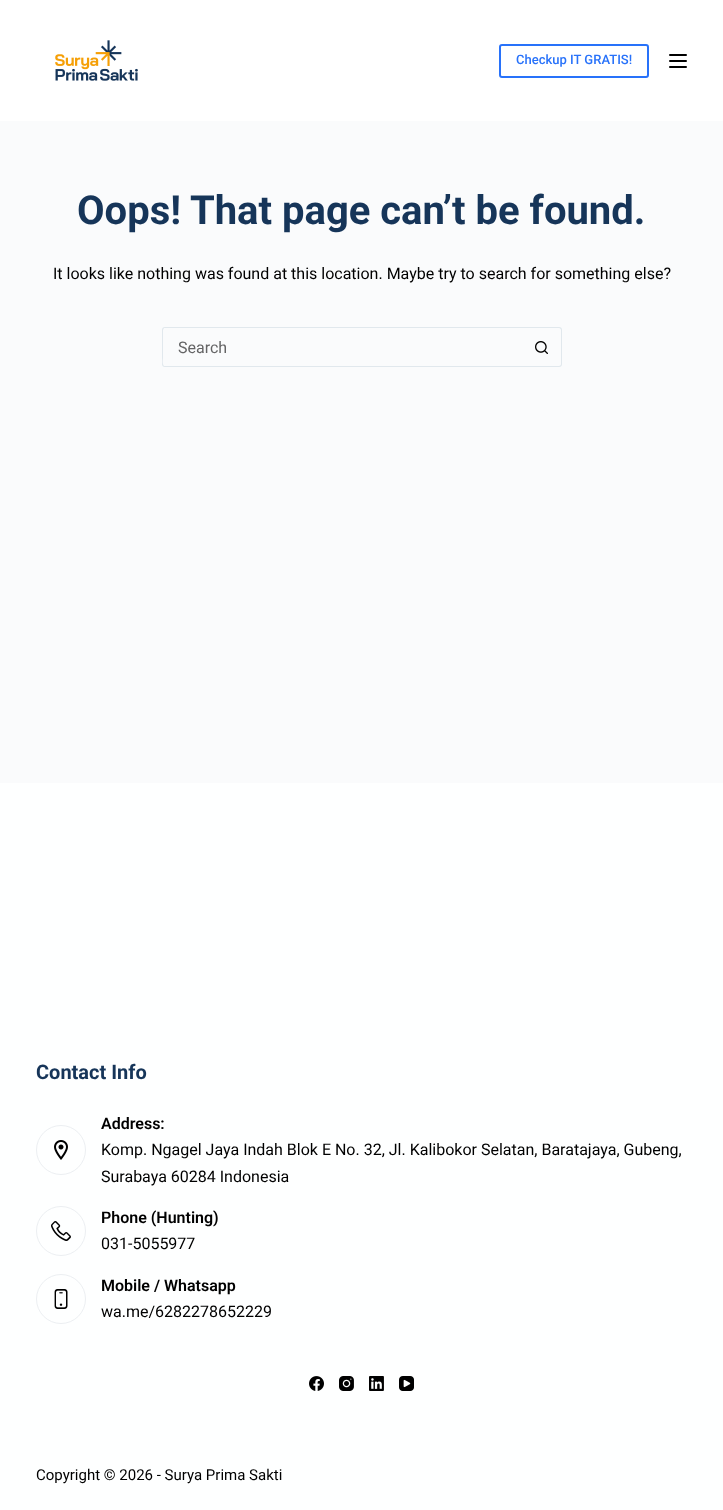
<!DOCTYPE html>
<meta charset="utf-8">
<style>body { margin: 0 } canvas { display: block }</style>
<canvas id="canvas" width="723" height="1510"></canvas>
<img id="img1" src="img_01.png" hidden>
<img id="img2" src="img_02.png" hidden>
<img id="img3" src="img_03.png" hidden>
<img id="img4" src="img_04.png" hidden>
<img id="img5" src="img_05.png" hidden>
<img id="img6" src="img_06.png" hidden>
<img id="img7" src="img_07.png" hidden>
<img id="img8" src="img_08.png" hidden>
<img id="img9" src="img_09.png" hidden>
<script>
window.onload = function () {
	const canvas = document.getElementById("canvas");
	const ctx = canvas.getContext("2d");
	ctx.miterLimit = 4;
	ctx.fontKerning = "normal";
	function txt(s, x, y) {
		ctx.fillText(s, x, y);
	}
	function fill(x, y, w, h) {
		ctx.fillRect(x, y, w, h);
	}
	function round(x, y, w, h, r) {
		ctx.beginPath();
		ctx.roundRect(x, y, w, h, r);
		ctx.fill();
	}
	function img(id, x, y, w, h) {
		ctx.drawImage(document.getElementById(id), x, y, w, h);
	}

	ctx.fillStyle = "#FAFBFC";
	fill(0, 0, 723, 1510);
	ctx.fillStyle = "#FFFFFF";
	fill(0, 0, 723, 121);
	img("img1", 55, 40, 83, 41);
	ctx.beginPath();
	ctx.roundRect(500, 45, 148, 32, 2);
	ctx.strokeStyle = "#2872FA";
	ctx.lineWidth = 2;
	ctx.stroke();
	ctx.fillStyle = "#000000";
	round(669, 54, 18, 2, 1);
	round(669, 60, 18, 2, 1);
	round(669, 66, 18, 2, 1);
	ctx.fillStyle = "#E1E8ED";
	ctx.beginPath();
	ctx.moveTo(165, 327);
	ctx.lineTo(522, 327);
	ctx.lineTo(522, 367);
	ctx.lineTo(165, 367);
	ctx.bezierCurveTo(163, 367, 162, 366, 162, 364);
	ctx.lineTo(162, 330);
	ctx.bezierCurveTo(162, 328, 163, 327, 165, 327);
	ctx.closePath();
	ctx.moveTo(165, 328);
	ctx.lineTo(522, 328);
	ctx.lineTo(522, 366);
	ctx.lineTo(164, 366);
	ctx.bezierCurveTo(162, 364, 163, 359, 163, 358);
	ctx.lineTo(163, 330);
	ctx.lineTo(164, 328);
	ctx.closePath();
	ctx.fill("evenodd");
	ctx.beginPath();
	ctx.moveTo(522, 327);
	ctx.lineTo(559, 327);
	ctx.bezierCurveTo(561, 327, 562, 328, 562, 330);
	ctx.lineTo(562, 364);
	ctx.bezierCurveTo(562, 366, 561, 367, 559, 367);
	ctx.lineTo(522, 367);
	ctx.closePath();
	ctx.moveTo(522, 328);
	ctx.lineTo(559, 328);
	ctx.bezierCurveTo(560, 328, 561, 329, 561, 330);
	ctx.lineTo(561, 364);
	ctx.bezierCurveTo(561, 365, 560, 366, 559, 366);
	ctx.lineTo(522, 366);
	ctx.closePath();
	ctx.fill("evenodd");
	img("img2", 535, 341, 13, 13);
	ctx.fillStyle = "#FEFFFF";
	fill(0, 783, 723, 727);
	ctx.beginPath();
	ctx.arc(61, 1150, 24.5, 0, Math.PI * 2);
	ctx.strokeStyle = "#ECEFF2";
	ctx.lineWidth = 1;
	ctx.stroke();
	img("img3", 54, 1140, 14, 20);
	ctx.beginPath();
	ctx.arc(61, 1231, 24.5, 0, Math.PI * 2);
	ctx.stroke();
	img("img4", 51, 1221, 20, 20);
	ctx.beginPath();
	ctx.arc(61, 1299, 24.5, 0, Math.PI * 2);
	ctx.stroke();
	img("img5", 54, 1289, 14, 20);
	img("img6", 309, 1376, 15, 15);
	img("img7", 339, 1376, 15, 15);
	img("img8", 369, 1376, 15, 15);
	img("img9", 399, 1376, 15, 15);
	ctx.font = "500 13px Roboto";
	ctx.fillStyle = "#2872FA";
	txt("Checkup IT GRATIS!", 516, 64);
	ctx.font = "bold 40px Roboto";
	ctx.fillStyle = "#163559";
	txt("Oops! That page can’t be found.", 77, 224);
	ctx.font = "16px Roboto";
	ctx.fillStyle = "#000000";
	txt("It looks like nothing was found at this location. Maybe try to search for something else?", 53, 279);
	ctx.fillStyle = "#646465";
	txt("Search", 178, 353);
	ctx.font = "bold 20px Roboto";
	ctx.fillStyle = "#163559";
	txt("Contact Info", 36, 1079);
	ctx.font = "600 16px Roboto";
	ctx.fillStyle = "#000000";
	txt("Address:", 101, 1129);
	ctx.font = "16px Roboto";
	txt("Komp. Ngagel Jaya Indah Blok E No. 32, Jl. Kalibokor Selatan, Baratajaya, Gubeng,", 101, 1155);
	txt("Surabaya 60284 Indonesia", 101, 1182);
	ctx.font = "600 16px Roboto";
	txt("Phone (Hunting)", 101, 1223);
	ctx.font = "16px Roboto";
	txt("031-5055977", 101, 1249);
	ctx.font = "600 16px Roboto";
	txt("Mobile / Whatsapp", 101, 1291);
	ctx.font = "16px Roboto";
	txt("wa.me/6282278652229", 101, 1317);
	ctx.font = "15px Roboto";
	txt("Copyright © 2026 - Surya Prima Sakti", 36, 1480);
};
</script>
